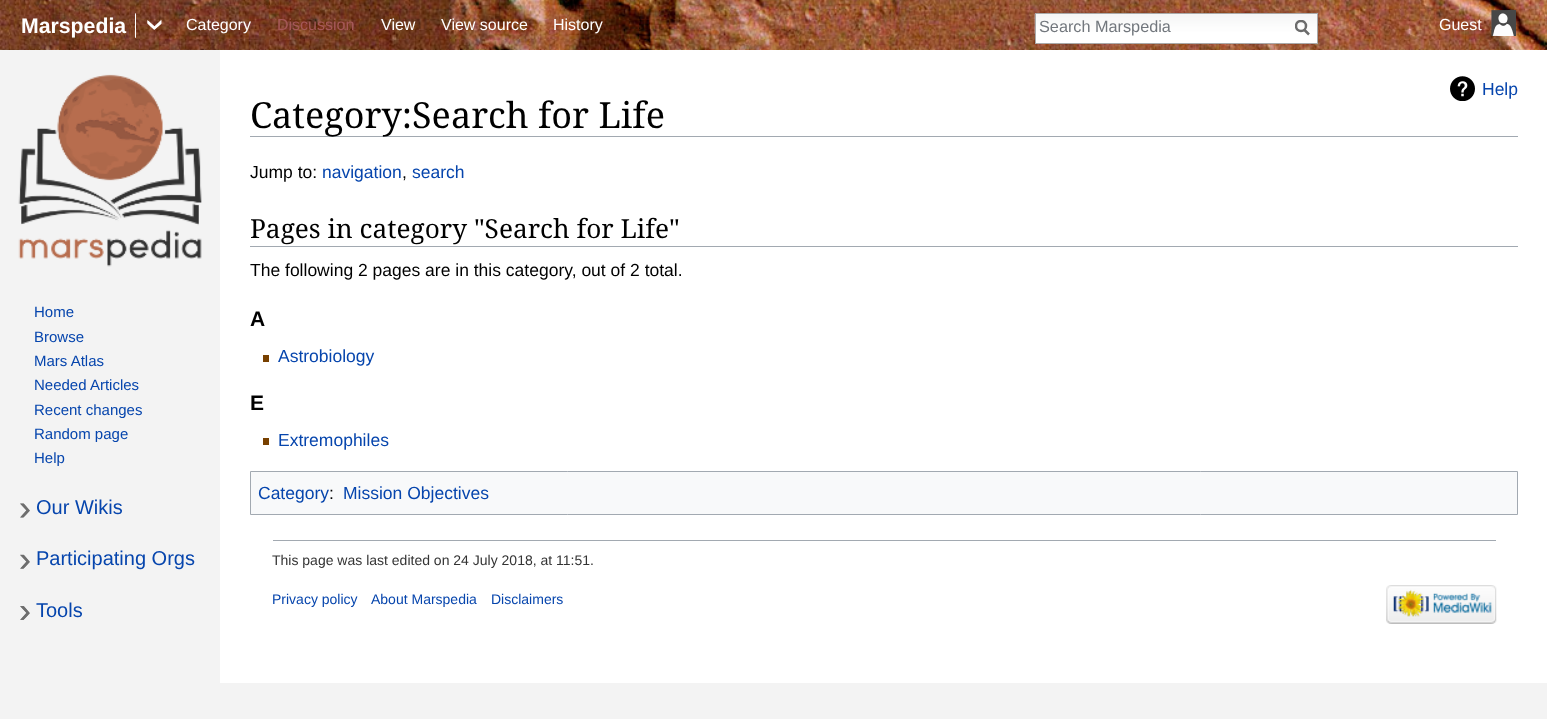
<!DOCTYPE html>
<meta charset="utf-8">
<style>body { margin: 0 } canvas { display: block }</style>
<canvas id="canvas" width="1547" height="719"></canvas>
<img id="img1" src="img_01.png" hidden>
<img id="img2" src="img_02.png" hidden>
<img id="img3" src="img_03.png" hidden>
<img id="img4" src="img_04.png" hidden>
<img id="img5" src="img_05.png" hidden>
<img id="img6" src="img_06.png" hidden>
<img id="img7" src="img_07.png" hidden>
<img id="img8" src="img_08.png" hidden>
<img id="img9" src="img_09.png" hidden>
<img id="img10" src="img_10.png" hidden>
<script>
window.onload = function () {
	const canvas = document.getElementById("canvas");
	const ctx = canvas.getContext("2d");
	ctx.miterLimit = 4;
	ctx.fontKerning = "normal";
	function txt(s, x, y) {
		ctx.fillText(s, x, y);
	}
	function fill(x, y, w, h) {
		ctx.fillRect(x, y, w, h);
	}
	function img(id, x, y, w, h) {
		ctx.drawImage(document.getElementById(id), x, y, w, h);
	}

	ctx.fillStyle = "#F3F3F3";
	fill(0, 0, 1547, 719);
	img("img1", 0, 0, 1547, 50);
	ctx.fillStyle = "#FEFEFE";
	ctx.beginPath();
	ctx.moveTo(135, 25.5);
	ctx.lineTo(135, 13.5);
	ctx.bezierCurveTo(135, 13, 136, 13, 136, 14.5);
	ctx.lineTo(136, 37.5);
	ctx.lineTo(135.5, 38);
	ctx.lineTo(135, 37.5);
	ctx.closePath();
	ctx.fill();
	img("img2", 147, 20, 15, 10);
	ctx.fillStyle = "#FFFFFF";
	fill(1036, 14, 281, 29);
	img("img3", 1034, 13, 283, 21);
	ctx.strokeStyle = "#AAAAAA";
	ctx.strokeRect(1035.5, 13.5, 282, 30);
	ctx.beginPath();
	ctx.moveTo(1309, 34.5);
	ctx.lineTo(1304, 29.5);
	ctx.strokeStyle = "#6C6C6C";
	ctx.lineWidth = 2.5;
	ctx.stroke();
	ctx.save();
	ctx.beginPath();
	ctx.rect(1295, 20, 15, 16);
	ctx.clip();
	ctx.beginPath();
	ctx.arc(1301, 26, 5, 0, Math.PI * 2);
	ctx.stroke();
	ctx.restore();
	img("img4", 1491, 10, 25, 26);
	img("img5", 18, 74, 184, 193);
	img("img6", 20, 503, 10, 15);
	img("img7", 20, 554, 10, 15);
	img("img8", 20, 606, 10, 14);
	fill(220, 50, 1327, 633);
	img("img9", 1450, 76, 25, 25);
	ctx.fillStyle = "#A2A9B1";
	fill(250, 136, 1268, 1);
	fill(250, 246, 1268, 1);
	ctx.fillStyle = "#784000";
	fill(263, 355, 6, 7);
	fill(263, 438, 6, 7);
	ctx.fillStyle = "#F8F9FA";
	ctx.beginPath();
	ctx.rect(250.5, 471.5, 1267, 43);
	ctx.fill();
	ctx.strokeStyle = "#A2A9B1";
	ctx.lineWidth = 1;
	ctx.stroke();
	ctx.fillStyle = "#A2A9B1";
	fill(273, 540, 1223, 1);
	img("img10", 1386, 585, 111, 39);
	ctx.font = "bold 21.25px Liberation Sans";
	ctx.fillStyle = "#FFFFFF";
	txt("Marspedia", 21, 33);
	ctx.font = "16px Liberation Sans";
	txt("Category", 186, 30);
	ctx.fillStyle = "#A55858";
	txt("Discussion", 277, 30);
	ctx.fillStyle = "#FFFFFF";
	txt("View", 381, 30);
	txt("View source", 441, 30);
	txt("History", 553, 30);
	ctx.font = "16.25px Liberation Sans";
	ctx.fillStyle = "#72777D";
	txt("Search Marspedia", 1039, 32);
	ctx.font = "16px Liberation Sans";
	ctx.fillStyle = "#FFFFFF";
	txt("Guest", 1439, 30);
	ctx.font = "15px Liberation Sans";
	ctx.fillStyle = "#0645AD";
	txt("Home", 34, 317);
	txt("Browse", 34, 342);
	txt("Mars Atlas", 34, 366);
	txt("Needed Articles", 34, 390);
	txt("Recent changes", 34, 415);
	txt("Random page", 34, 439);
	txt("Help", 34, 463);
	ctx.font = "20px Liberation Sans";
	txt("Our Wikis", 36, 514);
	txt("Participating Orgs", 36, 565);
	txt("Tools", 36, 617);
	ctx.font = "17.5px Liberation Sans";
	txt("Help", 1482, 95);
	ctx.font = "36px Noto Serif";
	ctx.fillStyle = "#000000";
	txt("Category:Search for Life", 250, 128);
	ctx.font = "17.5px Liberation Sans";
	txt("Jump to:", 250, 178);
	ctx.fillStyle = "#0645AD";
	txt("navigation", 322, 178);
	ctx.fillStyle = "#000000";
	txt(",", 402, 178);
	ctx.fillStyle = "#0645AD";
	txt("search", 412, 178);
	ctx.font = "26.25px Noto Serif";
	ctx.fillStyle = "#000000";
	txt("Pages in category \"Search for Life\"", 250, 238);
	ctx.font = "17.5px Liberation Sans";
	txt("The following 2 pages are in this category, out of 2 total.", 250, 276);
	ctx.font = "bold 21px Liberation Sans";
	txt("A", 250, 326);
	ctx.font = "17.5px Liberation Sans";
	ctx.fillStyle = "#0645AD";
	txt("Astrobiology", 278, 362);
	ctx.font = "bold 21px Liberation Sans";
	ctx.fillStyle = "#000000";
	txt("E", 250, 410);
	ctx.font = "17.5px Liberation Sans";
	ctx.fillStyle = "#0645AD";
	txt("Extremophiles", 278, 446);
	txt("Category", 258, 499);
	ctx.fillStyle = "#000000";
	txt(":", 329, 499);
	ctx.fillStyle = "#0645AD";
	txt("Mission Objectives", 343, 499);
	ctx.font = "14px Liberation Sans";
	ctx.fillStyle = "#333333";
	txt("This page was last edited on 24 July 2018, at 11:51.", 272, 565);
	ctx.fillStyle = "#0645AD";
	txt("Privacy policy", 272, 604);
	txt("About Marspedia", 371, 604);
	txt("Disclaimers", 491, 604);
};
</script>
